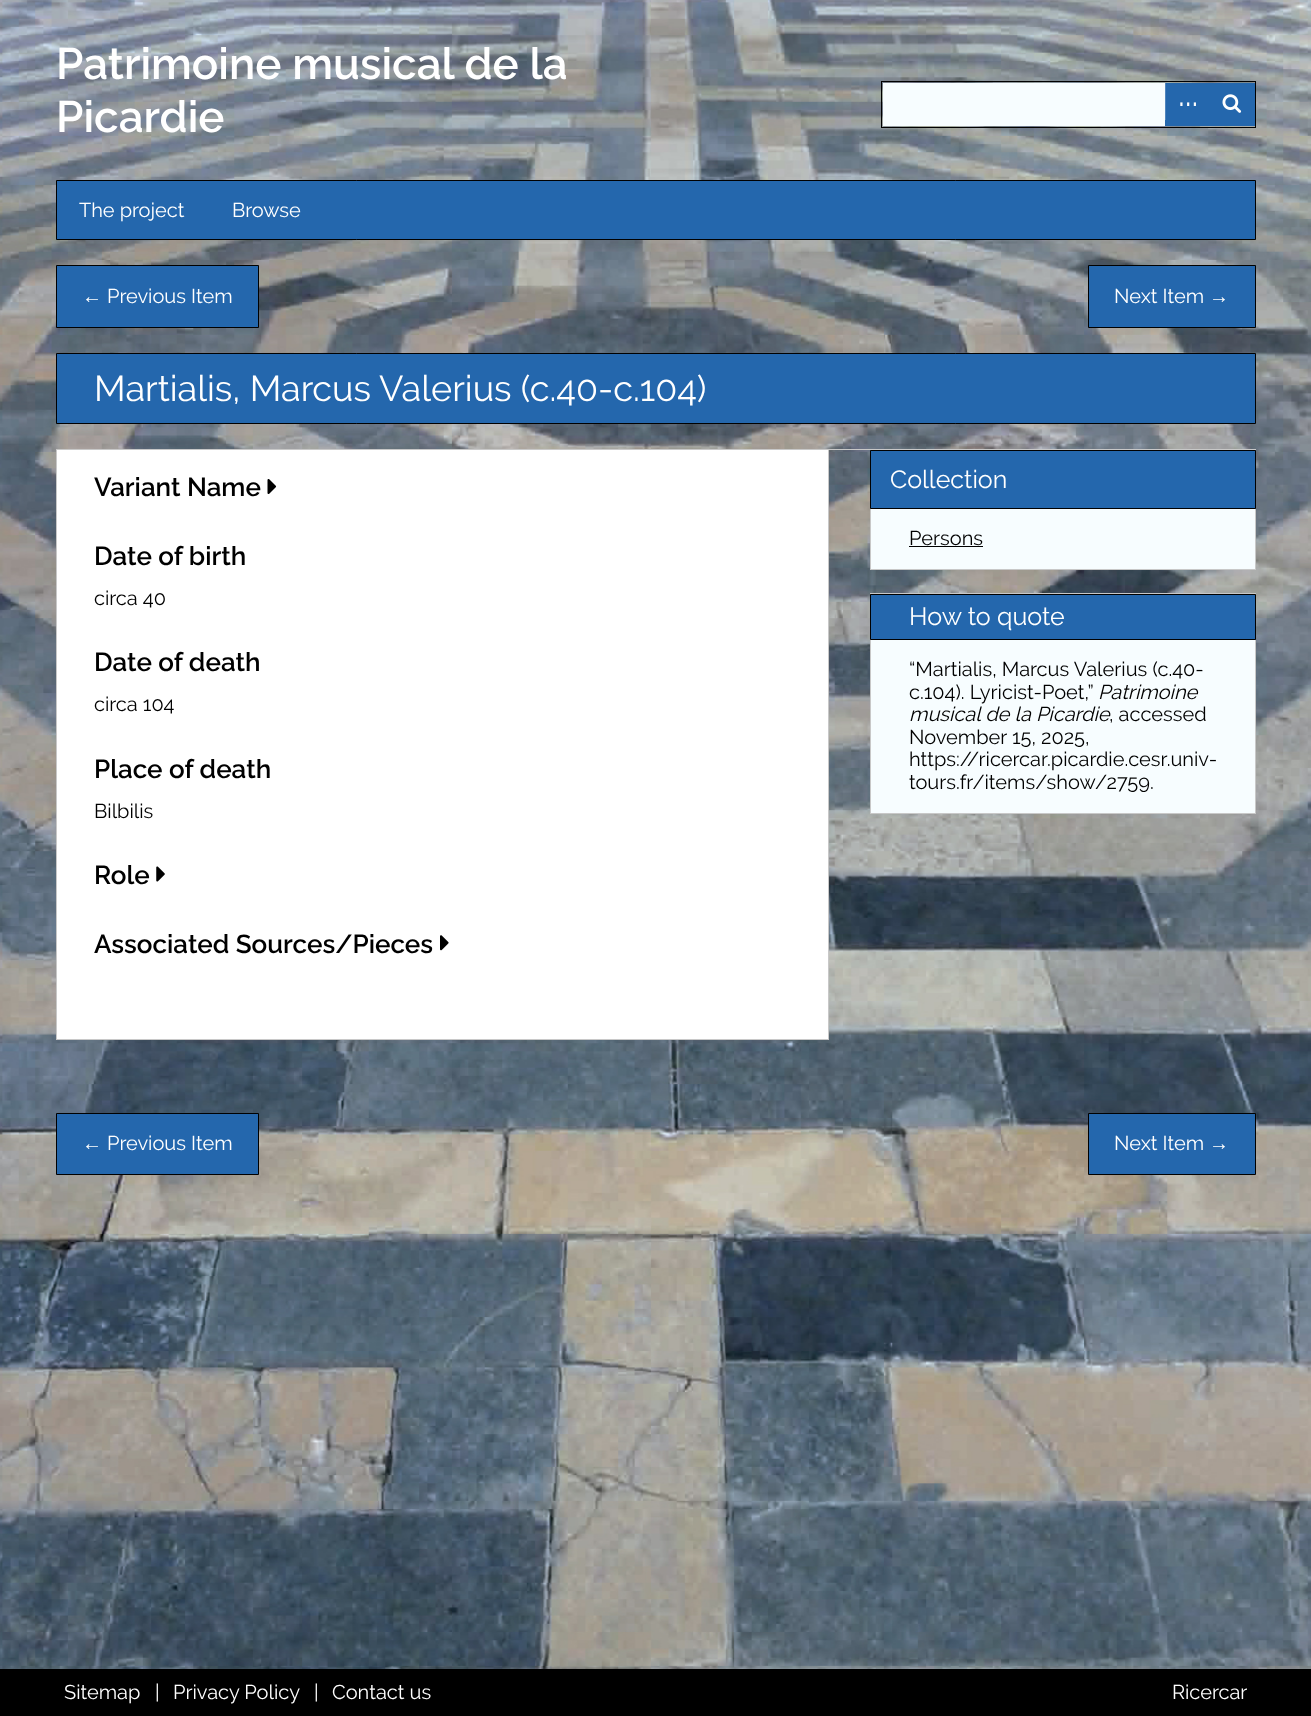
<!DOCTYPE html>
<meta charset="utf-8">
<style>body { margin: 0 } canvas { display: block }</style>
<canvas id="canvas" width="1311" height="1716"></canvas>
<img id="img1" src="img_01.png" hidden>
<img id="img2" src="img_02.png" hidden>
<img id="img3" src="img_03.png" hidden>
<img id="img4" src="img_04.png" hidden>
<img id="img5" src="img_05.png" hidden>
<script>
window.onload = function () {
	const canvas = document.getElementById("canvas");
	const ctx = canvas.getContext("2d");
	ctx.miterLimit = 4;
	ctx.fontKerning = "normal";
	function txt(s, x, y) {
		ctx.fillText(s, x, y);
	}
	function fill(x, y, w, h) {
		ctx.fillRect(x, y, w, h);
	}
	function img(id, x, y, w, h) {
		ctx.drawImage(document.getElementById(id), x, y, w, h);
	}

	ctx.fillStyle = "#FFFFFF";
	fill(0, 0, 1311, 1716);
	img("img1", 0, 0, 1311, 1669);
	ctx.strokeStyle = "#000000";
	ctx.strokeRect(881.5, 81.5, 374, 46);
	ctx.fillStyle = "#F7FDFF";
	fill(883, 83, 282, 43);
	ctx.fillStyle = "#2467AD";
	fill(1165, 83, 90, 43);
	ctx.fillStyle = "#5085BD";
	fill(1165, 83, 1, 37);
	img("img2", 1222, 94, 20, 19);
	ctx.fillStyle = "#2467AD";
	ctx.beginPath();
	ctx.rect(56.5, 180.5, 1199, 59);
	ctx.fill();
	ctx.stroke();
	ctx.beginPath();
	ctx.rect(56.5, 265.5, 202, 62);
	ctx.fill();
	ctx.stroke();
	ctx.beginPath();
	ctx.rect(1088.5, 265.5, 167, 62);
	ctx.fill();
	ctx.stroke();
	ctx.beginPath();
	ctx.rect(56.5, 353.5, 1199, 70);
	ctx.fill();
	ctx.stroke();
	ctx.fillStyle = "#C8C8C8";
	fill(56, 449, 1200, 1);
	ctx.fillStyle = "#FFFFFF";
	fill(57, 450, 771, 589);
	ctx.fillStyle = "#C8C8C8";
	fill(828, 450, 1, 590);
	fill(56, 1039, 773, 1);
	fill(56, 450, 1, 590);
	img("img3", 267, 479, 10, 15);
	img("img4", 156, 866, 9, 16);
	img("img5", 440, 935, 9, 16);
	ctx.fillStyle = "#F7FDFF";
	fill(871, 509, 384, 60);
	ctx.fillStyle = "#2467AD";
	ctx.beginPath();
	ctx.rect(870.5, 450.5, 385, 58);
	ctx.fill();
	ctx.stroke();
	ctx.fillStyle = "#C8C8C8";
	fill(1255, 509, 1, 61);
	fill(870, 569, 386, 1);
	fill(870, 509, 1, 61);
	ctx.fillStyle = "#000000";
	fill(909, 546, 74, 1);
	ctx.fillStyle = "#F7FDFF";
	fill(871, 640, 384, 173);
	ctx.fillStyle = "#C8C8C8";
	fill(870, 593, 386, 1);
	ctx.fillStyle = "#2467AD";
	ctx.beginPath();
	ctx.rect(870.5, 594.5, 385, 45);
	ctx.fill();
	ctx.stroke();
	ctx.fillStyle = "#C8C8C8";
	fill(1255, 640, 1, 174);
	fill(870, 813, 386, 1);
	fill(870, 640, 1, 174);
	ctx.fillStyle = "#2467AD";
	ctx.beginPath();
	ctx.rect(56.5, 1113.5, 202, 61);
	ctx.fill();
	ctx.stroke();
	ctx.beginPath();
	ctx.rect(1088.5, 1113.5, 167, 61);
	ctx.fill();
	ctx.stroke();
	ctx.fillStyle = "#000000";
	fill(0, 1669, 1311, 47);
	ctx.font = "600 44px Raleway";
	ctx.fillStyle = "#FFFFFF";
	txt("Patrimoine musical de la", 56, 79);
	txt("Picardie", 56, 132);
	ctx.font = "36px Raleway";
	txt("...", 1178, 106);
	ctx.font = "20px Raleway";
	txt("The project", 79, 217);
	txt("Browse", 232, 217);
	ctx.font = "20px Liberation Sans";
	txt("←", 82, 303);
	ctx.font = "20px Raleway";
	txt("Previous Item", 107, 303);
	txt("Next Item", 1114, 303);
	ctx.font = "20px Liberation Sans";
	txt("→", 1209, 303);
	ctx.font = "36px Raleway";
	txt("Martialis, Marcus Valerius (c.40-c.104)", 94, 401);
	ctx.font = "600 26px Raleway";
	ctx.fillStyle = "#000000";
	txt("Variant Name", 94, 496);
	txt("Date of birth", 94, 565);
	ctx.font = "20px Raleway";
	txt("circa 40", 94, 605);
	ctx.font = "600 26px Raleway";
	txt("Date of death", 94, 671);
	ctx.font = "20px Raleway";
	txt("circa 104", 94, 711);
	ctx.font = "600 26px Raleway";
	txt("Place of death", 94, 778);
	ctx.font = "20px Raleway";
	txt("Bilbilis", 94, 818);
	ctx.font = "600 26px Raleway";
	txt("Role", 94, 884);
	txt("Associated Sources/Pieces", 94, 953);
	ctx.font = "25px Raleway";
	ctx.fillStyle = "#FFFFFF";
	txt("Collection", 890, 488);
	ctx.font = "20px Raleway";
	ctx.fillStyle = "#000000";
	txt("Persons", 909, 545);
	ctx.font = "25px Raleway";
	ctx.fillStyle = "#FFFFFF";
	txt("How to quote", 909, 625);
	ctx.font = "20px Raleway";
	ctx.fillStyle = "#000000";
	txt("“Martialis, Marcus Valerius (c.40-", 909, 676);
	txt("c.104). Lyricist-Poet,”", 909, 699);
	ctx.font = "italic 20px Raleway";
	txt("Patrimoine", 1098, 699);
	txt("musical de la Picardie", 909, 721);
	ctx.font = "20px Raleway";
	txt(", accessed", 1109, 721);
	txt("November 15, 2025,", 909, 744);
	txt("https://ricercar.picardie.cesr.univ-", 909, 766);
	txt("tours.fr/items/show/2759.", 909, 789);
	ctx.font = "20px Liberation Sans";
	ctx.fillStyle = "#FFFFFF";
	txt("←", 82, 1150);
	ctx.font = "20px Raleway";
	txt("Previous Item", 107, 1150);
	txt("Next Item", 1114, 1150);
	ctx.font = "20px Liberation Sans";
	txt("→", 1209, 1150);
	ctx.font = "20px Raleway";
	txt("Sitemap", 64, 1699);
	txt("|", 155, 1699);
	txt("Privacy Policy", 173, 1699);
	txt("|", 314, 1699);
	txt("Contact us", 332, 1699);
	txt("Ricercar", 1172, 1699);
};
</script>
